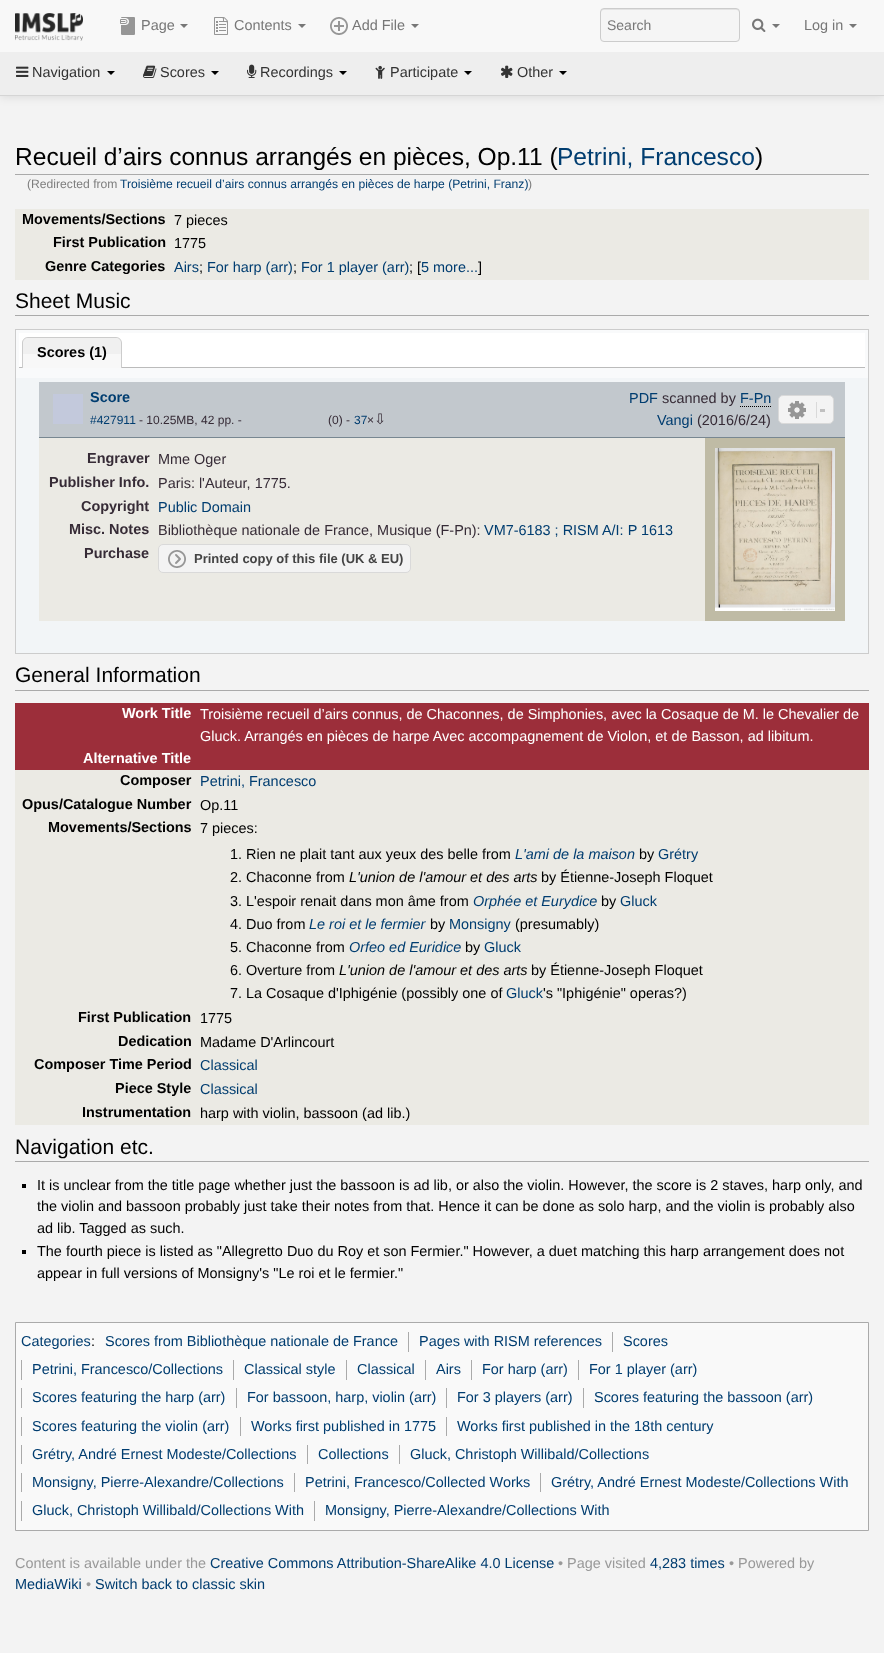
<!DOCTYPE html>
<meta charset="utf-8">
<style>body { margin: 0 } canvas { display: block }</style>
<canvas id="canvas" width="884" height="1653"></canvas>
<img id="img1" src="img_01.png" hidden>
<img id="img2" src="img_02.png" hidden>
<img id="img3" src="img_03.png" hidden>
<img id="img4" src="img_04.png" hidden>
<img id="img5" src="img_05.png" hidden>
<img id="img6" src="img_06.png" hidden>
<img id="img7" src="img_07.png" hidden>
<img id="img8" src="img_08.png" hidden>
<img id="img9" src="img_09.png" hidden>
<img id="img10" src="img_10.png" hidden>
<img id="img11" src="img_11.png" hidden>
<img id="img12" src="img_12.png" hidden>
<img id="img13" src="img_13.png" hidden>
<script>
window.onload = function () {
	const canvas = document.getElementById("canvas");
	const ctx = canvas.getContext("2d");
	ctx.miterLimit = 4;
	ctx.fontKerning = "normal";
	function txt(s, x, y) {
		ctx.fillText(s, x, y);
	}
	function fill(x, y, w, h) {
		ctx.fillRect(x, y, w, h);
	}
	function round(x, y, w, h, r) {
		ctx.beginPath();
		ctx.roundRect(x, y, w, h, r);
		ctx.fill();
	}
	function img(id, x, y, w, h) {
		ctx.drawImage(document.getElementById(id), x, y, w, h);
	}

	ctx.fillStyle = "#F3F3F3";
	fill(0, 0, 884, 1653);
	ctx.fillStyle = "rgba(0, 0, 0, 0.1)";
	ctx.filter = "blur(5px)";
	ctx.beginPath();
	ctx.rect(0, 53, 884, 44);
	ctx.fill();
	ctx.filter = "none";
	ctx.fillStyle = "#F8F8F8";
	fill(0, 0, 884, 52);
	img("img1", 15, 13, 68, 28);
	img("img2", 120, 17, 15, 18);
	ctx.fillStyle = "#777777";
	ctx.beginPath();
	ctx.moveTo(180, 24);
	ctx.lineTo(188, 24);
	ctx.lineTo(184, 28);
	ctx.closePath();
	ctx.fill();
	img("img3", 214, 17, 14, 18);
	ctx.beginPath();
	ctx.moveTo(298, 24);
	ctx.lineTo(306, 24);
	ctx.lineTo(302, 28);
	ctx.closePath();
	ctx.fill();
	img("img4", 330, 17, 18, 18);
	ctx.beginPath();
	ctx.moveTo(411, 24);
	ctx.lineTo(419, 24);
	ctx.lineTo(415, 28);
	ctx.closePath();
	ctx.fill();
	ctx.fillStyle = "#F5F5F5";
	round(600, 8, 140, 34, 4);
	ctx.fillStyle = "#E3E3E3";
	ctx.beginPath();
	ctx.moveTo(604, 10);
	ctx.lineTo(736, 10);
	ctx.bezierCurveTo(738, 10, 739, 11, 739, 13);
	ctx.bezierCurveTo(739, 11, 739, 9, 737, 9);
	ctx.lineTo(603, 9);
	ctx.bezierCurveTo(601, 9, 601, 11, 601, 13);
	ctx.bezierCurveTo(601, 11, 602, 10, 604, 10);
	ctx.closePath();
	ctx.fill();
	ctx.beginPath();
	ctx.roundRect(600.5, 8.5, 139, 33, 3.5);
	ctx.strokeStyle = "#CCCCCC";
	ctx.stroke();
	img("img5", 752, 18, 14, 14);
	ctx.fillStyle = "#777777";
	ctx.beginPath();
	ctx.moveTo(772, 24);
	ctx.lineTo(780, 24);
	ctx.lineTo(776, 28);
	ctx.closePath();
	ctx.fill();
	ctx.beginPath();
	ctx.moveTo(849, 24);
	ctx.lineTo(857, 24);
	ctx.lineTo(853, 28);
	ctx.closePath();
	ctx.fill();
	ctx.fillStyle = "#EEEEEE";
	fill(0, 52, 884, 43);
	ctx.fillStyle = "#D5D5D5";
	fill(0, 95, 884, 1);
	img("img6", 16, 66, 13, 11);
	ctx.fillStyle = "#000000";
	ctx.beginPath();
	ctx.moveTo(107, 71);
	ctx.lineTo(115, 71);
	ctx.lineTo(111, 75);
	ctx.closePath();
	ctx.fill();
	img("img7", 143, 65, 14, 13);
	ctx.beginPath();
	ctx.moveTo(211, 71);
	ctx.lineTo(219, 71);
	ctx.lineTo(215, 75);
	ctx.closePath();
	ctx.fill();
	img("img8", 247, 64, 10, 14);
	ctx.beginPath();
	ctx.moveTo(339, 71);
	ctx.lineTo(347, 71);
	ctx.lineTo(343, 75);
	ctx.closePath();
	ctx.fill();
	img("img9", 375, 65, 10, 14);
	ctx.beginPath();
	ctx.moveTo(464, 71);
	ctx.lineTo(472, 71);
	ctx.lineTo(468, 75);
	ctx.closePath();
	ctx.fill();
	img("img10", 501, 65, 12, 13);
	ctx.beginPath();
	ctx.moveTo(559, 71);
	ctx.lineTo(567, 71);
	ctx.lineTo(563, 75);
	ctx.closePath();
	ctx.fill();
	ctx.fillStyle = "#AAAAAA";
	fill(15, 174, 854, 1);
	ctx.fillStyle = "#EBEAE4";
	fill(15, 209, 854, 71);
	ctx.fillStyle = "#AAAAAA";
	fill(15, 315, 854, 1);
	ctx.fillStyle = "#F2F5F7";
	fill(16, 378, 852, 275);
	ctx.fillStyle = "#F9FAFB";
	fill(16, 330, 852, 48);
	ctx.strokeRect(15.5, 329.5, 853, 324);
	ctx.fillStyle = "#FFFFFF";
	fill(19, 333, 846, 34);
	ctx.fillStyle = "#BBBBBB";
	fill(19, 367, 846, 1);
	ctx.fillStyle = "#F0F0F0";
	ctx.beginPath();
	ctx.roundRect(22, 337, 100, 31, [6, 6, 0, 0]);
	ctx.fill();
	ctx.fillStyle = "#F8F8F8";
	fill(23, 354, 98, 14);
	ctx.fillStyle = "#CCCCCC";
	ctx.beginPath();
	ctx.moveTo(28, 337);
	ctx.lineTo(116, 337);
	ctx.bezierCurveTo(119, 337, 122, 340, 122, 343);
	ctx.lineTo(122, 368);
	ctx.lineTo(22, 368);
	ctx.lineTo(22, 343);
	ctx.bezierCurveTo(22, 340, 25, 337, 28, 337);
	ctx.closePath();
	ctx.moveTo(28, 338);
	ctx.lineTo(116, 338);
	ctx.bezierCurveTo(119, 338, 121, 340, 121, 343);
	ctx.lineTo(121, 368);
	ctx.lineTo(23, 368);
	ctx.lineTo(23, 343);
	ctx.bezierCurveTo(23, 340, 25, 338, 28, 338);
	ctx.closePath();
	ctx.fill("evenodd");
	ctx.fillStyle = "#C2C8CD";
	fill(39, 382, 806, 55);
	ctx.fillStyle = "#788791";
	fill(39, 437, 806, 1);
	ctx.fillStyle = "#C3C9DC";
	fill(53, 394, 30, 30);
	ctx.beginPath();
	ctx.moveTo(740, 406.5);
	ctx.lineTo(771, 406.5);
	ctx.strokeStyle = "#000000";
	ctx.setLineDash([1, 1]);
	ctx.stroke();
	ctx.fillStyle = "#F3F3F3";
	ctx.beginPath();
	ctx.roundRect(778.5, 395.5, 55, 28, 4.5);
	ctx.fill();
	ctx.strokeStyle = "#D9D9D9";
	ctx.setLineDash([]);
	ctx.stroke();
	img("img11", 788, 401, 18, 18);
	ctx.fillStyle = "#C0C0C0";
	fill(820, 409, 5, 3);
	ctx.fillStyle = "#D9D9D9";
	fill(816, 402, 1, 16);
	ctx.fillStyle = "#BFBBA5";
	fill(705, 438, 140, 183);
	ctx.fillStyle = "#EBEAE4";
	fill(39, 438, 666, 183);
	ctx.fillStyle = "#F3F3F3";
	ctx.beginPath();
	ctx.roundRect(158.5, 544.5, 252, 28, 4.5);
	ctx.fill();
	ctx.stroke();
	img("img12", 168, 550, 18, 18);
	img("img13", 715, 448, 120, 163);
	ctx.fillStyle = "#AAAAAA";
	fill(15, 690, 854, 1);
	ctx.fillStyle = "#EBEAE4";
	fill(15, 770, 854, 355);
	ctx.fillStyle = "#9C2E3A";
	fill(15, 703, 854, 45);
	fill(15, 748, 854, 22);
	ctx.fillStyle = "#AAAAAA";
	fill(15, 1161, 854, 1);
	ctx.fillStyle = "#000000";
	fill(22, 1184, 4, 4);
	fill(22, 1250, 4, 4);
	ctx.fillStyle = "#F9F9F9";
	ctx.beginPath();
	ctx.rect(15.5, 1322.5, 853, 208);
	ctx.fill();
	ctx.strokeStyle = "#AAAAAA";
	ctx.stroke();
	ctx.fillStyle = "#AAAAAA";
	fill(408, 1332, 1, 20);
	fill(612, 1332, 1, 20);
	fill(21, 1360, 1, 20);
	fill(233, 1360, 1, 20);
	fill(346, 1360, 1, 20);
	fill(425, 1360, 1, 20);
	fill(471, 1360, 1, 20);
	fill(578, 1360, 1, 20);
	fill(21, 1388, 1, 20);
	fill(236, 1388, 1, 20);
	fill(446, 1388, 1, 20);
	fill(583, 1388, 1, 20);
	fill(21, 1417, 1, 19);
	fill(240, 1417, 1, 19);
	fill(446, 1417, 1, 19);
	fill(21, 1445, 1, 19);
	fill(307, 1445, 1, 19);
	fill(399, 1445, 1, 19);
	fill(21, 1473, 1, 19);
	fill(294, 1473, 1, 19);
	fill(540, 1473, 1, 19);
	fill(21, 1501, 1, 20);
	fill(314, 1501, 1, 20);
	ctx.font = "14.45px Liberation Sans";
	ctx.fillStyle = "#777777";
	txt("Page", 141, 30);
	txt("Contents", 234, 30);
	txt("Add File", 352, 30);
	ctx.font = "14px Liberation Sans";
	txt("Search", 607, 30);
	ctx.font = "14.45px Liberation Sans";
	txt("Log in", 804, 30);
	ctx.fillStyle = "#333333";
	txt("Navigation", 32, 77);
	txt("Scores", 160, 77);
	txt("Recordings", 260, 77);
	txt("Participate", 390, 77);
	txt("Other", 517, 77);
	ctx.font = "24.55px Liberation Sans";
	ctx.fillStyle = "#000000";
	txt("Recueil d’airs connus arrangés en pièces, Op.11 (", 15, 165);
	ctx.fillStyle = "#003D70";
	txt("Petrini, Francesco", 557, 165);
	ctx.fillStyle = "#000000";
	txt(")", 755, 165);
	ctx.font = "12.15px Liberation Sans";
	ctx.fillStyle = "#7D7D7D";
	txt("(Redirected from", 27, 188);
	ctx.fillStyle = "#003D70";
	txt("Troisième recueil d’airs connus arrangés en pièces de harpe (Petrini, Franz)", 120, 188);
	ctx.fillStyle = "#7D7D7D";
	txt(")", 528, 188);
	ctx.font = "bold 14.45px Liberation Sans";
	ctx.fillStyle = "#000000";
	txt("Movements/Sections", 22, 224);
	ctx.font = "14.45px Liberation Sans";
	txt("7 pieces", 174, 225);
	ctx.font = "bold 14.45px Liberation Sans";
	txt("First Publication", 53, 247);
	ctx.font = "14.45px Liberation Sans";
	txt("1775", 174, 248);
	ctx.font = "bold 14.45px Liberation Sans";
	txt("Genre Categories", 45, 271);
	ctx.font = "14.45px Liberation Sans";
	ctx.fillStyle = "#003D70";
	txt("Airs", 174, 272);
	ctx.fillStyle = "#000000";
	txt(";", 199, 272);
	ctx.fillStyle = "#003D70";
	txt("For harp (arr)", 207, 272);
	ctx.fillStyle = "#000000";
	txt(";", 293, 272);
	ctx.fillStyle = "#003D70";
	txt("For 1 player (arr)", 301, 272);
	ctx.fillStyle = "#000000";
	txt("; [", 409, 272);
	ctx.fillStyle = "#003D70";
	txt("5 more...", 421, 272);
	ctx.fillStyle = "#000000";
	txt("]", 478, 272);
	ctx.font = "21px Liberation Sans";
	txt("Sheet Music", 15, 308);
	ctx.font = "bold 14.45px Liberation Sans";
	txt("Scores (1)", 37, 357);
	ctx.fillStyle = "#003D70";
	txt("Score", 90, 402);
	ctx.font = "12px Liberation Sans";
	txt("#427911", 90, 424);
	ctx.fillStyle = "#362B36";
	txt("- 10.25MB, 42 pp. -", 139, 424);
	txt("(0) -", 328, 424);
	ctx.fillStyle = "#003D70";
	txt("37", 354, 424);
	ctx.fillStyle = "#362B36";
	txt("×", 367, 424);
	ctx.font = "14.45px DejaVu Sans";
	txt("⇩", 374, 424);
	ctx.font = "14.45px Liberation Sans";
	ctx.fillStyle = "#003D70";
	txt("PDF", 629, 403);
	ctx.fillStyle = "#362B36";
	txt("scanned by", 662, 403);
	ctx.fillStyle = "#003D70";
	txt("F-Pn", 740, 403);
	txt("Vangi", 657, 425);
	ctx.fillStyle = "#362B36";
	txt("(2016/6/24)", 697, 425);
	ctx.font = "bold 14.45px Liberation Sans";
	txt("Engraver", 87, 463);
	ctx.font = "14.45px Liberation Sans";
	txt("Mme Oger", 158, 464);
	ctx.font = "bold 14.45px Liberation Sans";
	txt("Publisher Info.", 49, 487);
	ctx.font = "14.45px Liberation Sans";
	txt("Paris: l'Auteur, 1775.", 158, 488);
	ctx.font = "bold 14.45px Liberation Sans";
	txt("Copyright", 81, 511);
	ctx.font = "14.45px Liberation Sans";
	ctx.fillStyle = "#003D70";
	txt("Public Domain", 158, 512);
	ctx.font = "bold 14.45px Liberation Sans";
	ctx.fillStyle = "#362B36";
	txt("Misc. Notes", 69, 534);
	ctx.font = "14.45px Liberation Sans";
	txt("Bibliothèque nationale de France, Musique (F-Pn):", 158, 535);
	ctx.fillStyle = "#003D70";
	txt("VM7-6183 ; RISM A/I: P 1613", 484, 535);
	ctx.font = "bold 14.45px Liberation Sans";
	ctx.fillStyle = "#362B36";
	txt("Purchase", 84, 558);
	ctx.font = "bold 13px Liberation Sans";
	ctx.fillStyle = "#444444";
	txt("Printed copy of this file (UK & EU)", 194, 563);
	ctx.font = "21px Liberation Sans";
	ctx.fillStyle = "#000000";
	txt("General Information", 15, 682);
	ctx.font = "bold 14.45px Liberation Sans";
	ctx.fillStyle = "#FFFFFF";
	txt("Work Title", 122, 718);
	ctx.font = "14.45px Liberation Sans";
	txt("Troisième recueil d’airs connus, de Chaconnes, de Simphonies, avec la Cosaque de M. le Chevalier de", 200, 719);
	txt("Gluck. Arrangés en pièces de harpe Avec accompagnement de Violon, et de Basson, ad libitum.", 200, 741);
	ctx.font = "bold 14.45px Liberation Sans";
	txt("Alternative Title", 83, 763);
	ctx.fillStyle = "#000000";
	txt("Composer", 120, 785);
	ctx.font = "14.45px Liberation Sans";
	ctx.fillStyle = "#003D70";
	txt("Petrini, Francesco", 200, 786);
	ctx.font = "bold 14.45px Liberation Sans";
	ctx.fillStyle = "#000000";
	txt("Opus/Catalogue Number", 22, 809);
	ctx.font = "14.45px Liberation Sans";
	txt("Op.11", 200, 810);
	ctx.font = "bold 14.45px Liberation Sans";
	txt("Movements/Sections", 48, 832);
	ctx.font = "14.45px Liberation Sans";
	txt("7 pieces:", 200, 833);
	txt("1. Rien ne plait tant aux yeux des belle from", 230, 859);
	ctx.font = "italic 14.45px Liberation Sans";
	ctx.fillStyle = "#003D70";
	txt("L'ami de la maison", 515, 859);
	ctx.font = "14.45px Liberation Sans";
	ctx.fillStyle = "#000000";
	txt("by", 639, 859);
	ctx.fillStyle = "#003D70";
	txt("Grétry", 658, 859);
	ctx.fillStyle = "#000000";
	txt("2. Chaconne from", 230, 882);
	ctx.font = "italic 14.45px Liberation Sans";
	txt("L'union de l'amour et des arts", 349, 882);
	ctx.font = "14.45px Liberation Sans";
	txt("by Étienne-Joseph Floquet", 541, 882);
	txt("3. L'espoir renait dans mon âme from", 230, 906);
	ctx.font = "italic 14.45px Liberation Sans";
	ctx.fillStyle = "#003D70";
	txt("Orphée et Eurydice", 473, 906);
	ctx.font = "14.45px Liberation Sans";
	ctx.fillStyle = "#000000";
	txt("by", 601, 906);
	ctx.fillStyle = "#003D70";
	txt("Gluck", 620, 906);
	ctx.fillStyle = "#000000";
	txt("4. Duo from", 230, 929);
	ctx.font = "italic 14.45px Liberation Sans";
	ctx.fillStyle = "#003D70";
	txt("Le roi et le fermier", 309, 929);
	ctx.font = "14.45px Liberation Sans";
	ctx.fillStyle = "#000000";
	txt("by", 430, 929);
	ctx.fillStyle = "#003D70";
	txt("Monsigny", 449, 929);
	ctx.fillStyle = "#000000";
	txt("(presumably)", 515, 929);
	txt("5. Chaconne from", 230, 952);
	ctx.font = "italic 14.45px Liberation Sans";
	ctx.fillStyle = "#003D70";
	txt("Orfeo ed Euridice", 349, 952);
	ctx.font = "14.45px Liberation Sans";
	ctx.fillStyle = "#000000";
	txt("by", 465, 952);
	ctx.fillStyle = "#003D70";
	txt("Gluck", 484, 952);
	ctx.fillStyle = "#000000";
	txt("6. Overture from", 230, 975);
	ctx.font = "italic 14.45px Liberation Sans";
	txt("L'union de l'amour et des arts", 339, 975);
	ctx.font = "14.45px Liberation Sans";
	txt("by Étienne-Joseph Floquet", 531, 975);
	txt("7. La Cosaque d'Iphigénie (possibly one of", 230, 998);
	ctx.fillStyle = "#003D70";
	txt("Gluck", 506, 998);
	ctx.fillStyle = "#000000";
	txt("'s \"Iphigénie\" operas?)", 543, 998);
	ctx.font = "bold 14.45px Liberation Sans";
	txt("First Publication", 78, 1022);
	ctx.font = "14.45px Liberation Sans";
	txt("1775", 200, 1023);
	ctx.font = "bold 14.45px Liberation Sans";
	txt("Dedication", 118, 1046);
	ctx.font = "14.45px Liberation Sans";
	txt("Madame D'Arlincourt", 200, 1047);
	ctx.font = "bold 14.45px Liberation Sans";
	txt("Composer Time Period", 34, 1069);
	ctx.font = "14.45px Liberation Sans";
	ctx.fillStyle = "#003D70";
	txt("Classical", 200, 1070);
	ctx.font = "bold 14.45px Liberation Sans";
	ctx.fillStyle = "#000000";
	txt("Piece Style", 115, 1093);
	ctx.font = "14.45px Liberation Sans";
	ctx.fillStyle = "#003D70";
	txt("Classical", 200, 1094);
	ctx.font = "bold 14.45px Liberation Sans";
	ctx.fillStyle = "#000000";
	txt("Instrumentation", 82, 1117);
	ctx.font = "14.45px Liberation Sans";
	txt("harp with violin, bassoon (ad lib.)", 200, 1118);
	ctx.font = "21px Liberation Sans";
	txt("Navigation etc.", 15, 1154);
	ctx.font = "14.45px Liberation Sans";
	txt("It is unclear from the title page whether just the bassoon is ad lib, or also the violin. However, the score is 2 staves, harp only, and", 37, 1190);
	txt("the violin and bassoon probably just take their notes from that. Hence it can be done as solo harp, and the violin is probably also", 37, 1211);
	txt("ad lib. Tagged as such.", 37, 1233);
	txt("The fourth piece is listed as \"Allegretto Duo du Roy et son Fermier.\" However, a duet matching this harp arrangement does not", 37, 1256);
	txt("appear in full versions of Monsigny's \"Le roi et le fermier.\"", 37, 1278);
	ctx.fillStyle = "#003D70";
	txt("Categories", 21, 1346);
	txt("Scores from Bibliothèque nationale de France", 105, 1346);
	txt("Pages with RISM references", 419, 1346);
	txt("Scores", 623, 1346);
	txt("Petrini, Francesco/Collections", 32, 1374);
	txt("Classical style", 244, 1374);
	txt("Classical", 357, 1374);
	txt("Airs", 436, 1374);
	txt("For harp (arr)", 482, 1374);
	txt("For 1 player (arr)", 589, 1374);
	txt("Scores featuring the harp (arr)", 32, 1402);
	txt("For bassoon, harp, violin (arr)", 247, 1402);
	txt("For 3 players (arr)", 457, 1402);
	txt("Scores featuring the bassoon (arr)", 594, 1402);
	txt("Scores featuring the violin (arr)", 32, 1431);
	txt("Works first published in 1775", 251, 1431);
	txt("Works first published in the 18th century", 457, 1431);
	txt("Grétry, André Ernest Modeste/Collections", 32, 1459);
	txt("Collections", 318, 1459);
	txt("Gluck, Christoph Willibald/Collections", 410, 1459);
	txt("Monsigny, Pierre-Alexandre/Collections", 32, 1487);
	txt("Petrini, Francesco/Collected Works", 305, 1487);
	txt("Grétry, André Ernest Modeste/Collections With", 551, 1487);
	txt("Gluck, Christoph Willibald/Collections With", 32, 1515);
	txt("Monsigny, Pierre-Alexandre/Collections With", 325, 1515);
	ctx.fillStyle = "#000000";
	txt(":", 91, 1346);
	ctx.fillStyle = "#999999";
	txt("Content is available under the", 15, 1568);
	ctx.fillStyle = "#003D70";
	txt("Creative Commons Attribution-ShareAlike 4.0 License", 210, 1568);
	ctx.fillStyle = "#999999";
	txt("• Page visited", 558, 1568);
	ctx.fillStyle = "#003D70";
	txt("4,283 times", 650, 1568);
	ctx.fillStyle = "#999999";
	txt("• Powered by", 729, 1568);
	ctx.fillStyle = "#003D70";
	txt("MediaWiki", 15, 1589);
	ctx.fillStyle = "#999999";
	txt("•", 86, 1589);
	ctx.fillStyle = "#003D70";
	txt("Switch back to classic skin", 95, 1589);
};
</script>
